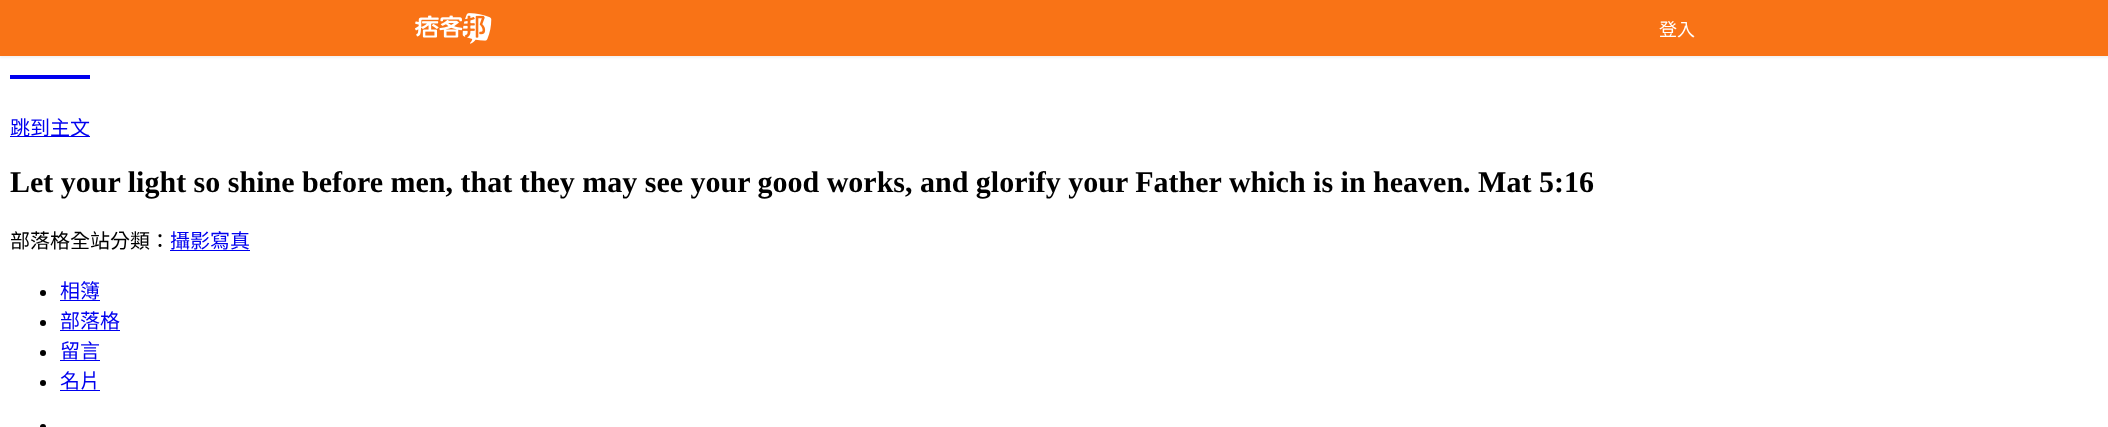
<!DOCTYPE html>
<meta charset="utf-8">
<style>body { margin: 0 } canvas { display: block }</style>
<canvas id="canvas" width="2108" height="427"></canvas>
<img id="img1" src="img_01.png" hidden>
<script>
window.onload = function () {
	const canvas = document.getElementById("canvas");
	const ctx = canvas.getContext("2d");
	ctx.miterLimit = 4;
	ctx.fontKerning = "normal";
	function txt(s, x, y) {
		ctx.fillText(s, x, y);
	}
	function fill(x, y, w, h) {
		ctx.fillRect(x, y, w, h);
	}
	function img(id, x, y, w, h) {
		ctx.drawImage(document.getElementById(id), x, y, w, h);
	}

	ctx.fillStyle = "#FFFFFF";
	fill(0, 0, 2108, 427);
	ctx.fillStyle = "rgba(0, 0, 0, 0.05)";
	ctx.filter = "blur(1px)";
	ctx.beginPath();
	ctx.rect(0, 1, 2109, 57);
	ctx.fill();
	ctx.filter = "none";
	ctx.fillStyle = "#F97316";
	fill(0, 0, 2108, 56);
	img("img1", 415, 13, 77, 31);
	ctx.fillStyle = "#0000EE";
	fill(10, 75, 80, 4);
	fill(10, 136, 80, 1);
	fill(170, 250, 80, 1);
	ctx.fillStyle = "#000000";
	ctx.beginPath();
	ctx.arc(43, 293, 3, 0, Math.PI * 2);
	ctx.fill();
	ctx.fillStyle = "#0000EE";
	fill(60, 300, 40, 1);
	ctx.fillStyle = "#000000";
	ctx.beginPath();
	ctx.arc(43, 323, 3, 0, Math.PI * 2);
	ctx.fill();
	ctx.fillStyle = "#0000EE";
	fill(60, 330, 60, 1);
	ctx.fillStyle = "#000000";
	ctx.beginPath();
	ctx.arc(43, 353, 3, 0, Math.PI * 2);
	ctx.fill();
	ctx.fillStyle = "#0000EE";
	fill(60, 360, 40, 1);
	ctx.fillStyle = "#000000";
	ctx.beginPath();
	ctx.arc(43, 383, 3, 0, Math.PI * 2);
	ctx.fill();
	ctx.fillStyle = "#0000EE";
	fill(60, 390, 40, 1);
	ctx.fillStyle = "#000000";
	ctx.beginPath();
	ctx.arc(43, 427, 3, 0, Math.PI * 2);
	ctx.fill();
	ctx.font = "18px Noto Sans CJK TC";
	ctx.fillStyle = "#FFFFFF";
	txt("登入", 1659, 36);
	ctx.font = "20px Noto Sans CJK TC";
	ctx.fillStyle = "#0000EE";
	txt("跳到主文", 10, 135);
	ctx.font = "bold 30px Liberation Serif";
	ctx.fillStyle = "#000000";
	txt("Let your light so shine before men, that they may see your good works, and glorify your Father which is in heaven. Mat 5:16", 10, 192);
	ctx.font = "20px Noto Sans CJK TC";
	txt("部落格全站分類：", 10, 248);
	ctx.fillStyle = "#0000EE";
	txt("攝影寫真", 170, 248);
	txt("相簿", 60, 298);
	txt("部落格", 60, 328);
	txt("留言", 60, 358);
	txt("名片", 60, 388);
};
</script>
